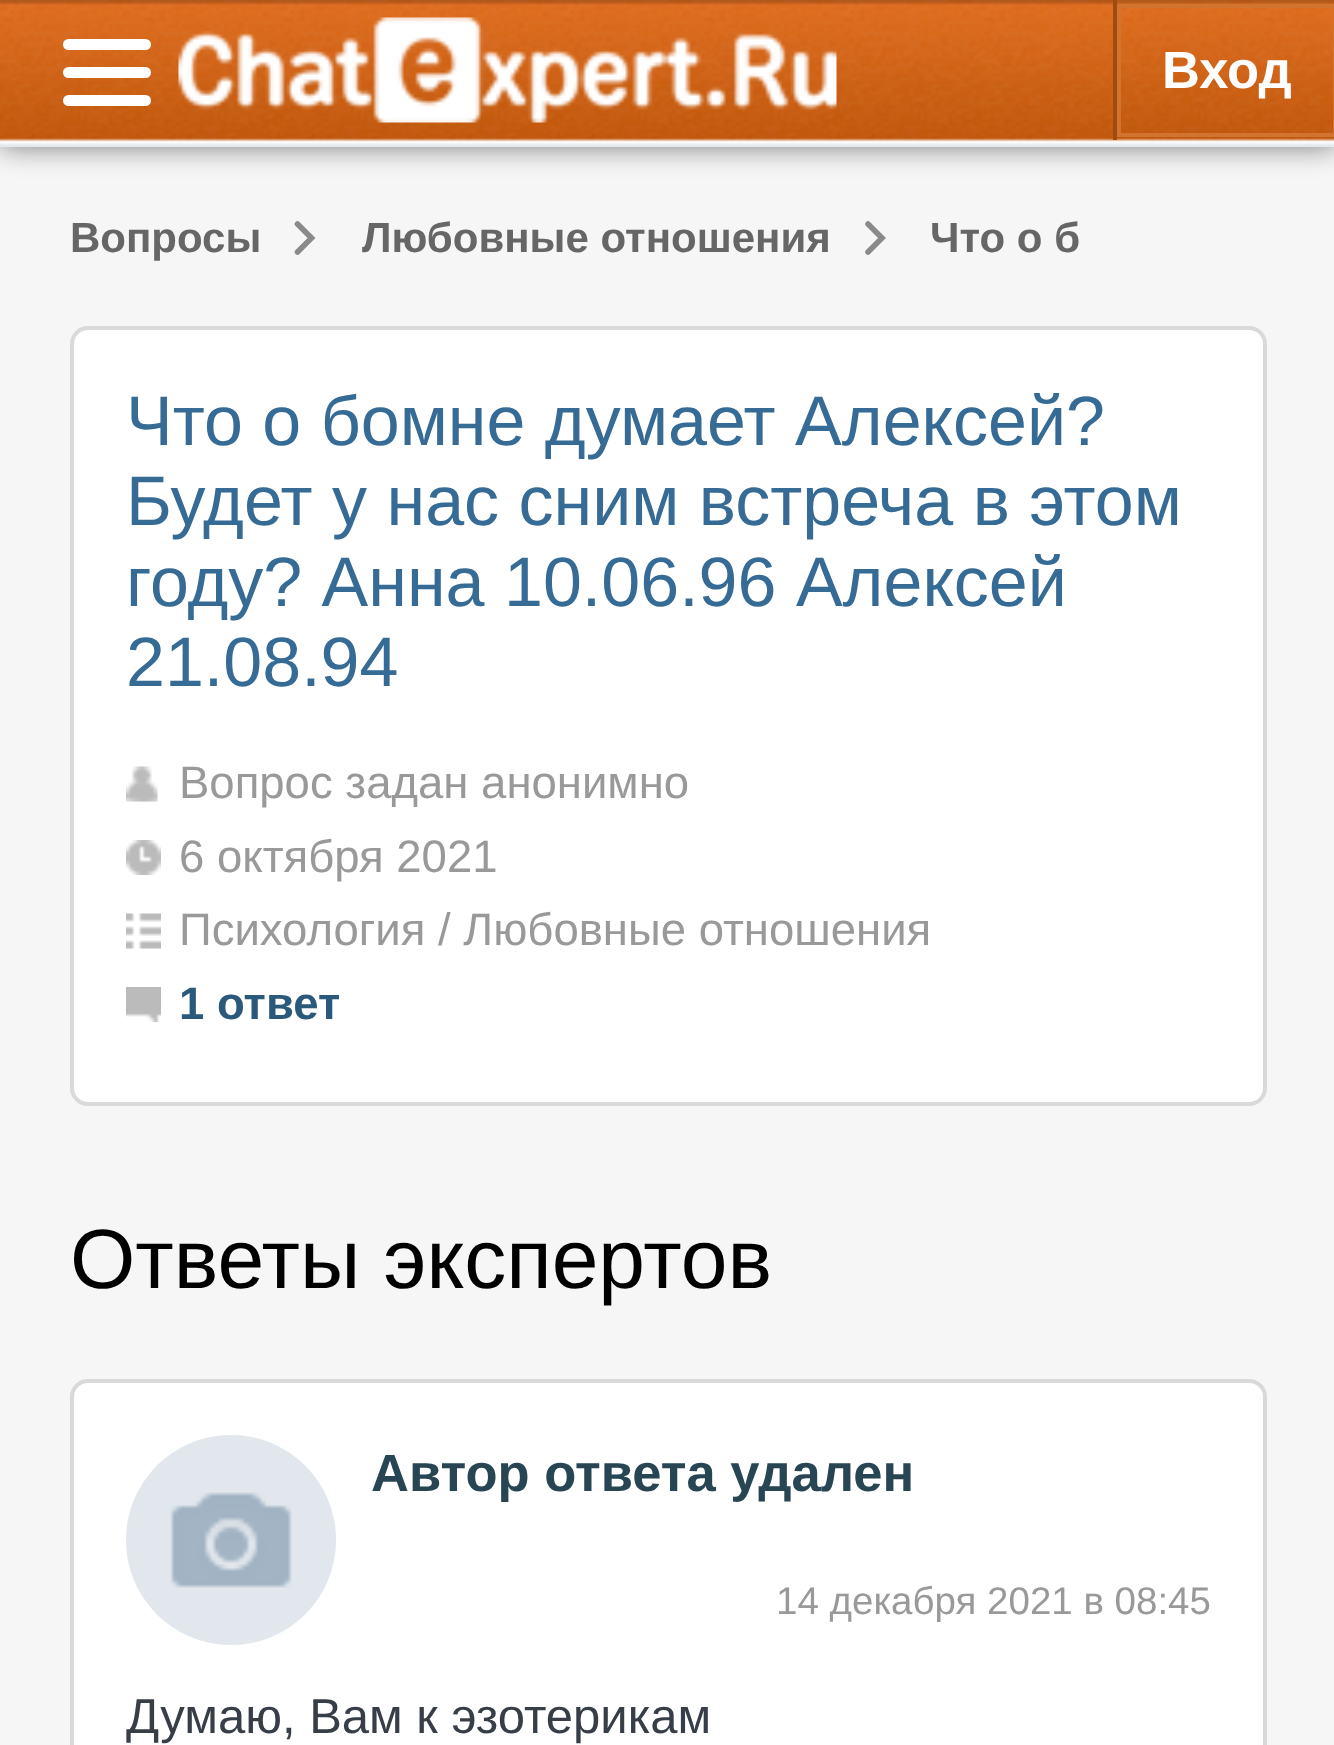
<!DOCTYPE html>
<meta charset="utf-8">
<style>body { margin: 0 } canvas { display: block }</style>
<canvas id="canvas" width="1334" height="1745"></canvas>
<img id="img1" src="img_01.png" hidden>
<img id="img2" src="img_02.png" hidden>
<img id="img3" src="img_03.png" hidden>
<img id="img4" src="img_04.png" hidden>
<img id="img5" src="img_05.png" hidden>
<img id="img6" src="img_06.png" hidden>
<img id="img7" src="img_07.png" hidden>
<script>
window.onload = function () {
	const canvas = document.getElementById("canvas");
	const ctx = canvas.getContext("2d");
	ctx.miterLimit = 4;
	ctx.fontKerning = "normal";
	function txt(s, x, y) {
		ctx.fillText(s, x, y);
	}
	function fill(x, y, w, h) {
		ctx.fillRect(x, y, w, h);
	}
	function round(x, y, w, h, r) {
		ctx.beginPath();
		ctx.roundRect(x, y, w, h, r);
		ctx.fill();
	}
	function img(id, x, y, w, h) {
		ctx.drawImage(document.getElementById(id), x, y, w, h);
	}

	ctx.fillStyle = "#F6F6F6";
	fill(0, 0, 1334, 1745);
	ctx.fillStyle = "rgba(0, 0, 0, 0.5)";
	ctx.filter = "blur(14px)";
	ctx.beginPath();
	ctx.rect(0, 0, 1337, 147);
	ctx.fill();
	ctx.filter = "none";
	img("img1", 0, 0, 1334, 147);
	ctx.fillStyle = "#FFFFFF";
	round(63, 67, 88, 11, 5.5);
	round(63, 39, 88, 11, 5.5);
	round(63, 95, 88, 11, 5.5);
	img("img2", 178, 17, 659, 106);
	ctx.fillStyle = "#A14C0E";
	fill(1113, 0, 4, 140);
	ctx.strokeStyle = "#D17430";
	ctx.lineWidth = 4;
	ctx.strokeRect(1119, 6, 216, 129);
	ctx.beginPath();
	ctx.moveTo(297.5, 224);
	ctx.lineTo(311.5, 238);
	ctx.lineTo(297.5, 252);
	ctx.strokeStyle = "#8A8A8A";
	ctx.lineWidth = 5.6;
	ctx.lineCap = "round";
	ctx.stroke();
	ctx.beginPath();
	ctx.moveTo(868, 224);
	ctx.lineTo(882, 238);
	ctx.lineTo(868, 252);
	ctx.stroke();
	ctx.fillStyle = "#FFFFFF";
	ctx.beginPath();
	ctx.roundRect(72, 328, 1193, 776, 16);
	ctx.fill();
	ctx.strokeStyle = "#D9D9D9";
	ctx.lineWidth = 4;
	ctx.stroke();
	img("img3", 126, 766, 32, 36);
	img("img4", 126, 840, 35, 35);
	img("img5", 126, 913, 35, 36);
	img("img6", 126, 987, 35, 35);
	ctx.beginPath();
	ctx.roundRect(72, 1381, 1193, 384, 16);
	ctx.fill();
	ctx.stroke();
	ctx.fillStyle = "#F2F2F2";
	ctx.beginPath();
	ctx.arc(231, 1540, 105, 0, Math.PI * 2);
	ctx.fill();
	img("img7", 126, 1435, 210, 210);
	ctx.font = "bold 52.5px Liberation Sans";
	ctx.fillStyle = "#FFFFFF";
	txt("Вход", 1162, 88);
	ctx.font = "bold 42px Liberation Sans";
	ctx.fillStyle = "#666666";
	txt("Вопросы", 70, 252);
	txt("Любовные отношения", 362, 252);
	txt("Что о б", 930, 252);
	ctx.font = "70px Liberation Sans";
	ctx.fillStyle = "#356B94";
	txt("Что о бомне думает Алексей?", 126, 445);
	txt("Будет у нас сним встреча в этом", 126, 525);
	txt("году? Анна 10.06.96 Алексей", 126, 606);
	txt("21.08.94", 126, 686);
	ctx.font = "45.5px Liberation Sans";
	ctx.fillStyle = "#999999";
	txt("Вопрос задан анонимно", 179, 798);
	txt("6 октября 2021", 179, 872);
	txt("Психология / Любовные отношения", 179, 945);
	ctx.font = "bold 45.5px Liberation Sans";
	ctx.fillStyle = "#2B597B";
	txt("1 ответ", 179, 1019);
	ctx.font = "84px Liberation Sans";
	ctx.fillStyle = "#000000";
	txt("Ответы экспертов", 70, 1288);
	ctx.font = "bold 52.5px Liberation Sans";
	ctx.fillStyle = "#284553";
	txt("Автор ответа удален", 371, 1491);
	ctx.font = "38.5px Liberation Sans";
	ctx.fillStyle = "#999999";
	txt("14 декабря 2021 в 08:45", 776, 1614);
	ctx.font = "49px Liberation Sans";
	ctx.fillStyle = "#383E47";
	txt("Думаю, Вам к эзотерикам", 126, 1733);
};
</script>
